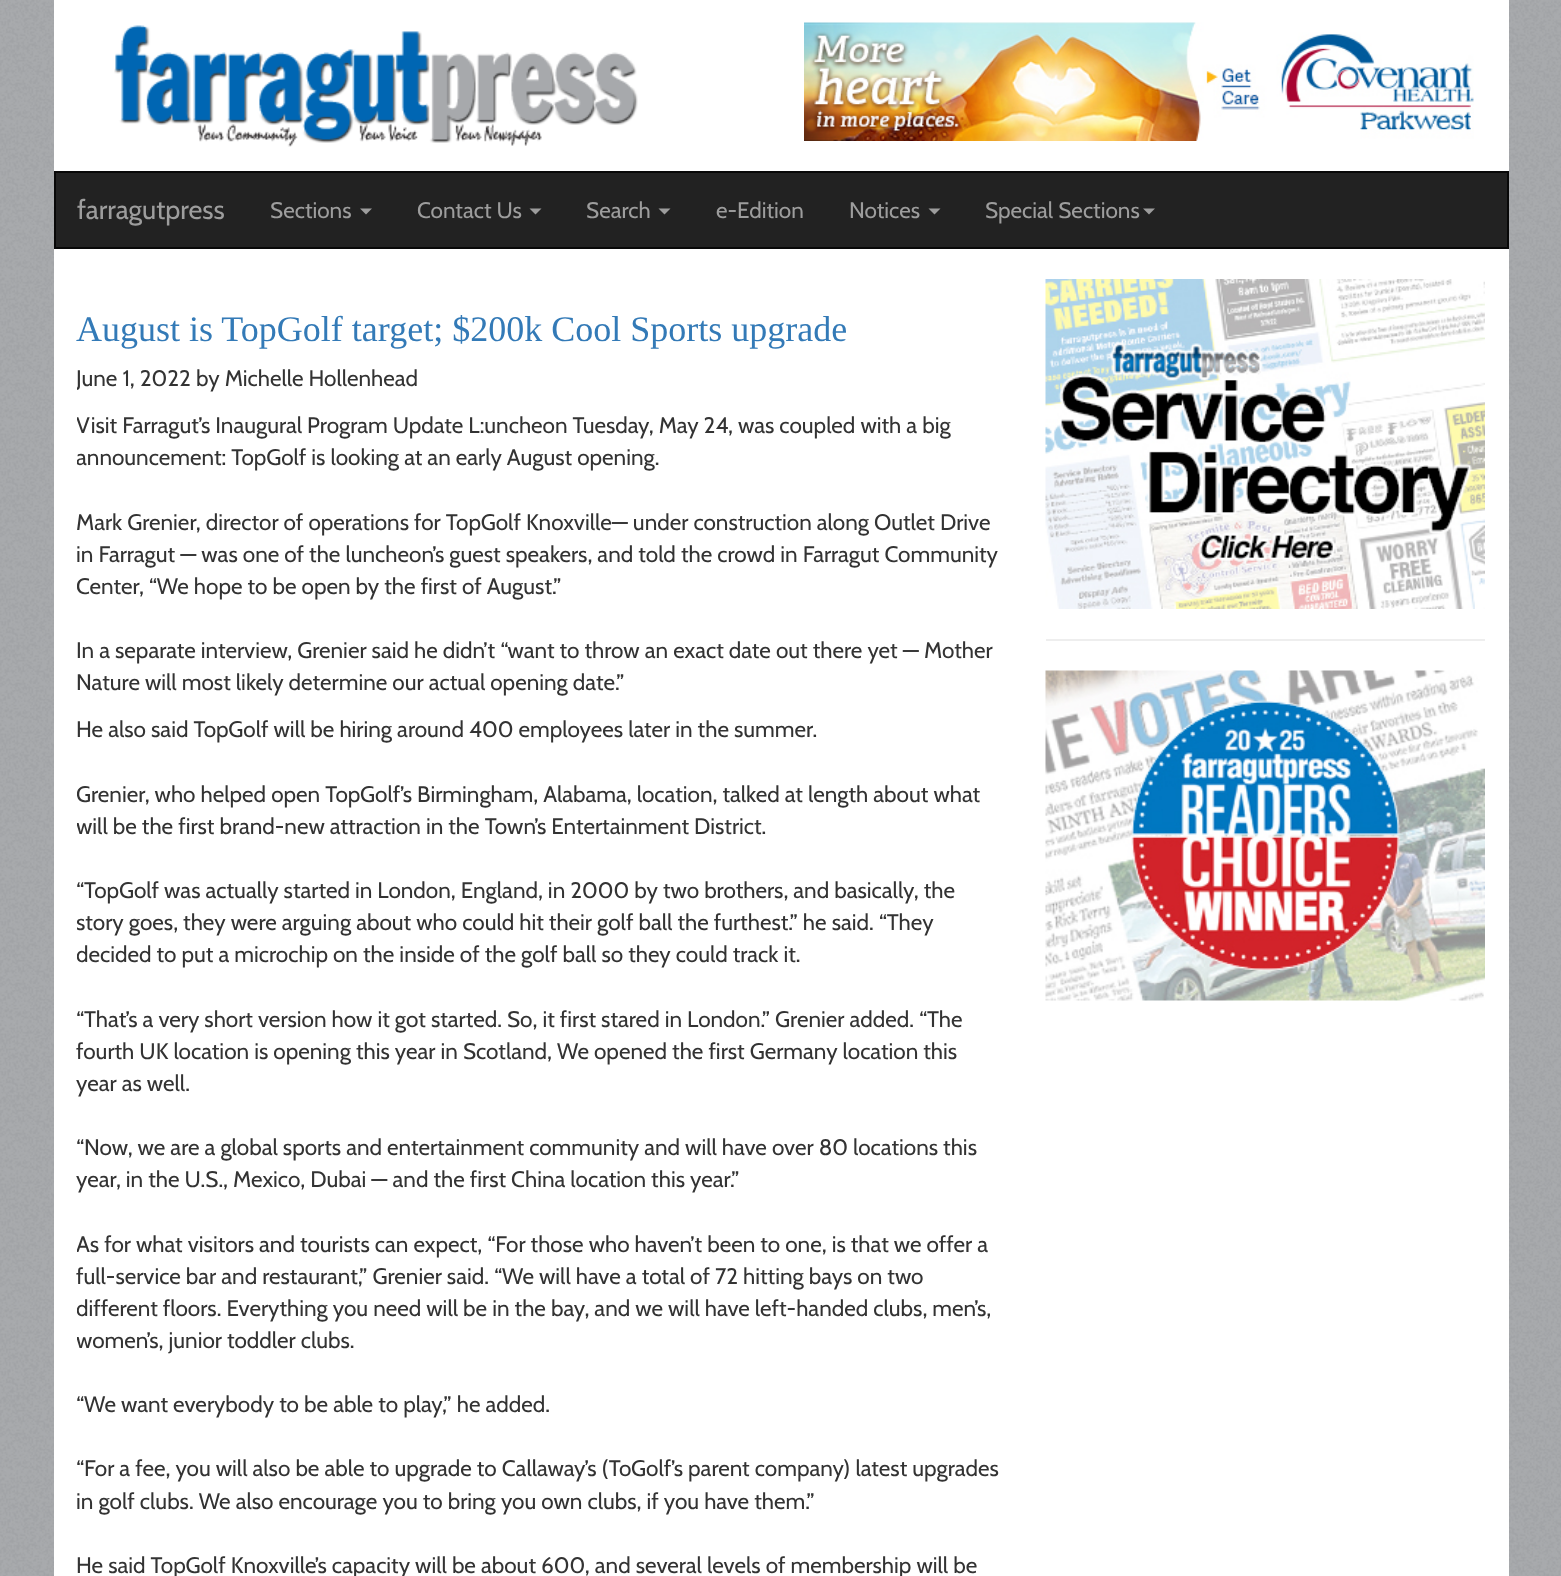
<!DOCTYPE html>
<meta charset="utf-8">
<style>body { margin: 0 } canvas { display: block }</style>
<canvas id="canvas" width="1561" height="1576"></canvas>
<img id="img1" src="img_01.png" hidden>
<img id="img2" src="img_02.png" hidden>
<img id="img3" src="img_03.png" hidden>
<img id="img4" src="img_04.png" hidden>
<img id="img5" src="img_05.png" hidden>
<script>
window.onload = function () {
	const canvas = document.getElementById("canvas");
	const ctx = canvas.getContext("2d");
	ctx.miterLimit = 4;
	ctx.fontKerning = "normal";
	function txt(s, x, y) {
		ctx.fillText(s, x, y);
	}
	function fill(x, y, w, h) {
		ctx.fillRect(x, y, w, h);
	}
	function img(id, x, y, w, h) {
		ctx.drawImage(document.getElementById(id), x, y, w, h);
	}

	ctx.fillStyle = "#A7A9AC";
	fill(0, 0, 1561, 1576);
	img("img1", 0, 0, 1561, 1576);
	ctx.fillStyle = "#FFFFFF";
	fill(54, 0, 1455, 1576);
	img("img2", 114, 25, 524, 122);
	img("img3", 804, 22, 670, 119);
	ctx.fillStyle = "#222222";
	ctx.beginPath();
	ctx.rect(55, 172, 1453, 76);
	ctx.fill();
	ctx.strokeStyle = "#080808";
	ctx.lineWidth = 2;
	ctx.stroke();
	ctx.fillStyle = "#9D9D9D";
	ctx.beginPath();
	ctx.moveTo(360, 208.5);
	ctx.lineTo(372, 208.5);
	ctx.lineTo(366, 214.5);
	ctx.closePath();
	ctx.fill();
	ctx.beginPath();
	ctx.moveTo(529.5, 208.5);
	ctx.lineTo(541.5, 208.5);
	ctx.lineTo(535.5, 214.5);
	ctx.closePath();
	ctx.fill();
	ctx.beginPath();
	ctx.moveTo(658.5, 208.5);
	ctx.lineTo(670.5, 208.5);
	ctx.lineTo(664.5, 214.5);
	ctx.closePath();
	ctx.fill();
	ctx.beginPath();
	ctx.moveTo(928.5, 208.5);
	ctx.lineTo(940.5, 208.5);
	ctx.lineTo(934.5, 214.5);
	ctx.closePath();
	ctx.fill();
	ctx.beginPath();
	ctx.moveTo(1143, 208.5);
	ctx.lineTo(1155, 208.5);
	ctx.lineTo(1149, 214.5);
	ctx.closePath();
	ctx.fill();
	img("img4", 1045, 279, 440, 330);
	ctx.fillStyle = "#EEEEEE";
	fill(1046, 639, 439, 2);
	img("img5", 1045, 670, 440, 331);
	ctx.font = "27px Cabin";
	ctx.fillStyle = "#9D9D9D";
	txt("farragutpress", 77, 219);
	ctx.font = "22.5px Cabin";
	txt("Sections", 270, 218);
	txt("Contact Us", 417, 218);
	txt("Search", 586, 218);
	txt("e-Edition", 716, 218);
	txt("Notices", 849, 218);
	txt("Special Sections", 985, 218);
	ctx.font = "36px Liberation Serif";
	ctx.fillStyle = "#337AB7";
	txt("August is TopGolf target; $200k Cool Sports upgrade", 76, 341);
	ctx.save();
	ctx.beginPath();
	ctx.rect(77, 279, 924, 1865);
	ctx.clip();
	ctx.font = "22.5px Cabin";
	ctx.fillStyle = "#333333";
	txt("June 1, 2022", 76, 386);
	ctx.restore();
	ctx.font = "22.5px Cabin";
	ctx.fillStyle = "#333333";
	txt("by Michelle Hollenhead", 196, 386);
	ctx.save();
	ctx.beginPath();
	ctx.rect(77, 279, 924, 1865);
	ctx.clip();
	txt("Visit Farragut’s Inaugural Program Update L:uncheon Tuesday, May 24, was coupled with a big", 76, 433);
	txt("announcement: TopGolf is looking at an early August opening.", 76, 465);
	ctx.restore();
	txt("Mark Grenier, director of operations for TopGolf Knoxville— under construction along Outlet Drive", 76, 530);
	txt("in Farragut — was one of the luncheon’s guest speakers, and told the crowd in Farragut Community", 76, 562);
	ctx.save();
	ctx.beginPath();
	ctx.rect(77, 279, 924, 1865);
	ctx.clip();
	txt("Center, “We hope to be open by the first of August.”", 76, 594);
	ctx.restore();
	txt("In a separate interview, Grenier said he didn’t “want to throw an exact date out there yet — Mother", 76, 658);
	txt("Nature will most likely determine our actual opening date.”", 76, 690);
	txt("He also said TopGolf will be hiring around 400 employees later in the summer.", 76, 737);
	ctx.save();
	ctx.beginPath();
	ctx.rect(77, 279, 924, 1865);
	ctx.clip();
	txt("Grenier, who helped open TopGolf’s Birmingham, Alabama, location, talked at length about what", 76, 802);
	txt("will be the first brand-new attraction in the Town’s Entertainment District.", 76, 834);
	ctx.restore();
	txt("“TopGolf was actually started in London, England, in 2000 by two brothers, and basically, the", 76, 898);
	ctx.save();
	ctx.beginPath();
	ctx.rect(77, 279, 924, 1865);
	ctx.clip();
	txt("story goes, they were arguing about who could hit their golf ball the furthest.” he said. “They", 76, 930);
	txt("decided to put a microchip on the inside of the golf ball so they could track it.", 76, 962);
	ctx.restore();
	txt("“That’s a very short version how it got started. So, it first stared in London.” Grenier added. “The", 76, 1027);
	txt("fourth UK location is opening this year in Scotland, We opened the first Germany location this", 76, 1059);
	txt("year as well.", 76, 1091);
	txt("“Now, we are a global sports and entertainment community and will have over 80 locations this", 76, 1155);
	txt("year, in the U.S., Mexico, Dubai — and the first China location this year.”", 76, 1187);
	ctx.save();
	ctx.beginPath();
	ctx.rect(77, 279, 924, 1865);
	ctx.clip();
	txt("As for what visitors and tourists can expect, “For those who haven’t been to one, is that we offer a", 76, 1252);
	ctx.restore();
	txt("full-service bar and restaurant,” Grenier said. “We will have a total of 72 hitting bays on two", 76, 1284);
	ctx.save();
	ctx.beginPath();
	ctx.rect(77, 279, 924, 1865);
	ctx.clip();
	txt("different floors. Everything you need will be in the bay, and we will have left-handed clubs, men’s,", 76, 1316);
	txt("women’s, junior toddler clubs.", 76, 1348);
	ctx.restore();
	txt("“We want everybody to be able to play,” he added.", 76, 1412);
	txt("“For a fee, you will also be able to upgrade to Callaway’s (ToGolf’s parent company) latest upgrades", 76, 1476);
	txt("in golf clubs. We also encourage you to bring you own clubs, if you have them.”", 76, 1509);
	txt("He said TopGolf Knoxville’s capacity will be about 600, and several levels of membership will be", 76, 1573);
};
</script>
